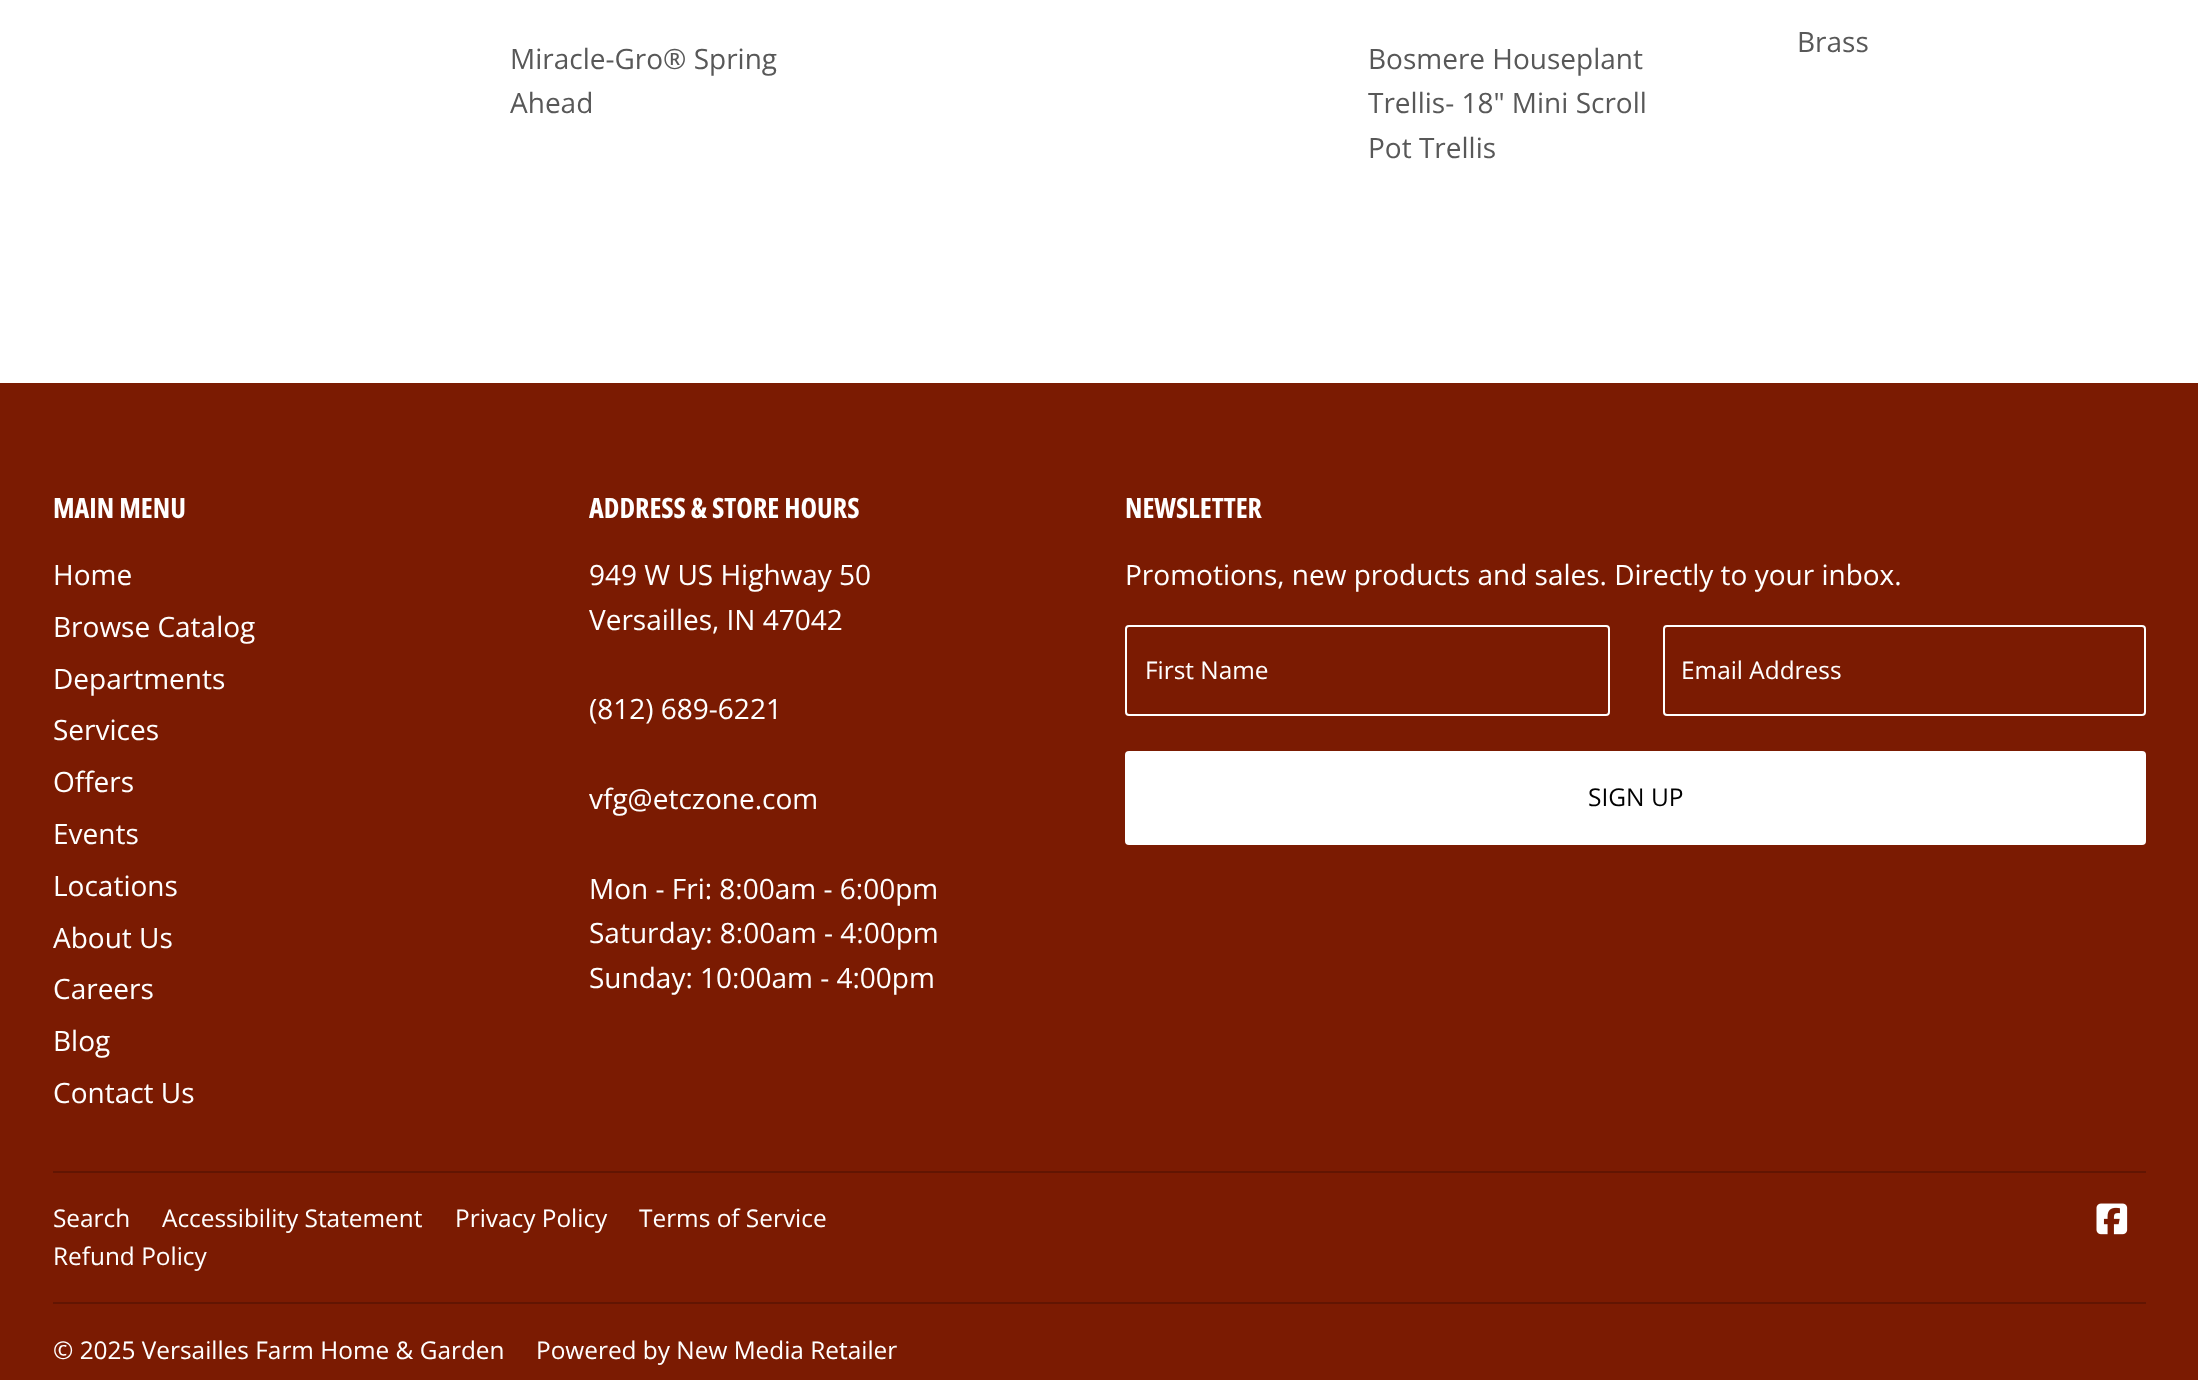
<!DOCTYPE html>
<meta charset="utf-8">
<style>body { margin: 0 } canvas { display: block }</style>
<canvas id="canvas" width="2198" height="1380"></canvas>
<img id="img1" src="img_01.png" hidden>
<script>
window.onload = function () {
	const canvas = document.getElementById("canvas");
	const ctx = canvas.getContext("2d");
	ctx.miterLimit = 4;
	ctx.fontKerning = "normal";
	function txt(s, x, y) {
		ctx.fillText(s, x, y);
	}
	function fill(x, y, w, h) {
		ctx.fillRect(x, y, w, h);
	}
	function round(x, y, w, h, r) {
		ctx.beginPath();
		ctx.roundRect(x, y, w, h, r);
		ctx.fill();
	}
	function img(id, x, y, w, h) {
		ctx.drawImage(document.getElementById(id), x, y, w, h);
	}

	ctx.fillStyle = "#FFFFFF";
	fill(0, 0, 2198, 1380);
	ctx.fillStyle = "#7B1B02";
	fill(0, 383, 2198, 997);
	ctx.beginPath();
	ctx.roundRect(1126, 626, 483, 89, 3);
	ctx.strokeStyle = "#FFFFFF";
	ctx.lineWidth = 2;
	ctx.stroke();
	ctx.beginPath();
	ctx.roundRect(1664, 626, 481, 89, 3);
	ctx.stroke();
	ctx.fillStyle = "#FFFFFF";
	round(1125, 751, 1021, 94, 4);
	ctx.fillStyle = "#621502";
	fill(53, 1171, 2093, 2);
	img("img1", 2096, 1203, 32, 32);
	fill(53, 1302, 2093, 2);
	ctx.font = "28px Open Sans";
	ctx.fillStyle = "#585858";
	txt("Brass", 1797, 52);
	txt("Miracle-Gro® Spring", 510, 69);
	txt("Ahead", 510, 113);
	txt("Bosmere Houseplant", 1368, 69);
	txt("Trellis- 18\" Mini Scroll", 1368, 113);
	txt("Pot Trellis", 1368, 158);
	ctx.font = "bold 28px Open Sans Condensed";
	ctx.fillStyle = "#FFFFFF";
	txt("MAIN MENU", 53, 518);
	ctx.font = "28px Open Sans";
	txt("Home", 53, 585);
	txt("Browse Catalog", 53, 637);
	txt("Departments", 53, 689);
	txt("Services", 53, 740);
	txt("Offers", 53, 792);
	txt("Events", 53, 844);
	txt("Locations", 53, 896);
	txt("About Us", 53, 948);
	txt("Careers", 53, 999);
	txt("Blog", 53, 1051);
	txt("Contact Us", 53, 1103);
	ctx.font = "bold 28px Open Sans Condensed";
	txt("ADDRESS & STORE HOURS", 589, 518);
	ctx.font = "28px Open Sans";
	txt("949 W US Highway 50", 589, 585);
	txt("Versailles, IN 47042", 589, 630);
	txt("(812) 689-6221", 589, 719);
	txt("vfg@etczone.com", 589, 809);
	txt("Mon - Fri: 8:00am - 6:00pm", 589, 899);
	txt("Saturday: 8:00am - 4:00pm", 589, 943);
	txt("Sunday: 10:00am - 4:00pm", 589, 988);
	ctx.font = "bold 28px Open Sans Condensed";
	txt("NEWSLETTER", 1125, 518);
	ctx.font = "28px Open Sans";
	txt("Promotions, new products and sales. Directly to your inbox.", 1125, 585);
	ctx.font = "24.4px Open Sans";
	txt("First Name", 1145, 679);
	txt("Email Address", 1681, 679);
	ctx.font = "24.5px Open Sans";
	ctx.fillStyle = "#000000";
	txt("SIGN UP", 1588, 806);
	ctx.font = "24.4px Open Sans";
	ctx.fillStyle = "#FFFFFF";
	txt("Search", 53, 1227);
	txt("Accessibility Statement", 162, 1227);
	txt("Privacy Policy", 455, 1227);
	txt("Terms of Service", 639, 1227);
	txt("Refund Policy", 53, 1265);
	txt("© 2025 Versailles Farm Home & Garden", 53, 1359);
	txt("Powered by New Media Retailer", 536, 1359);
};
</script>
